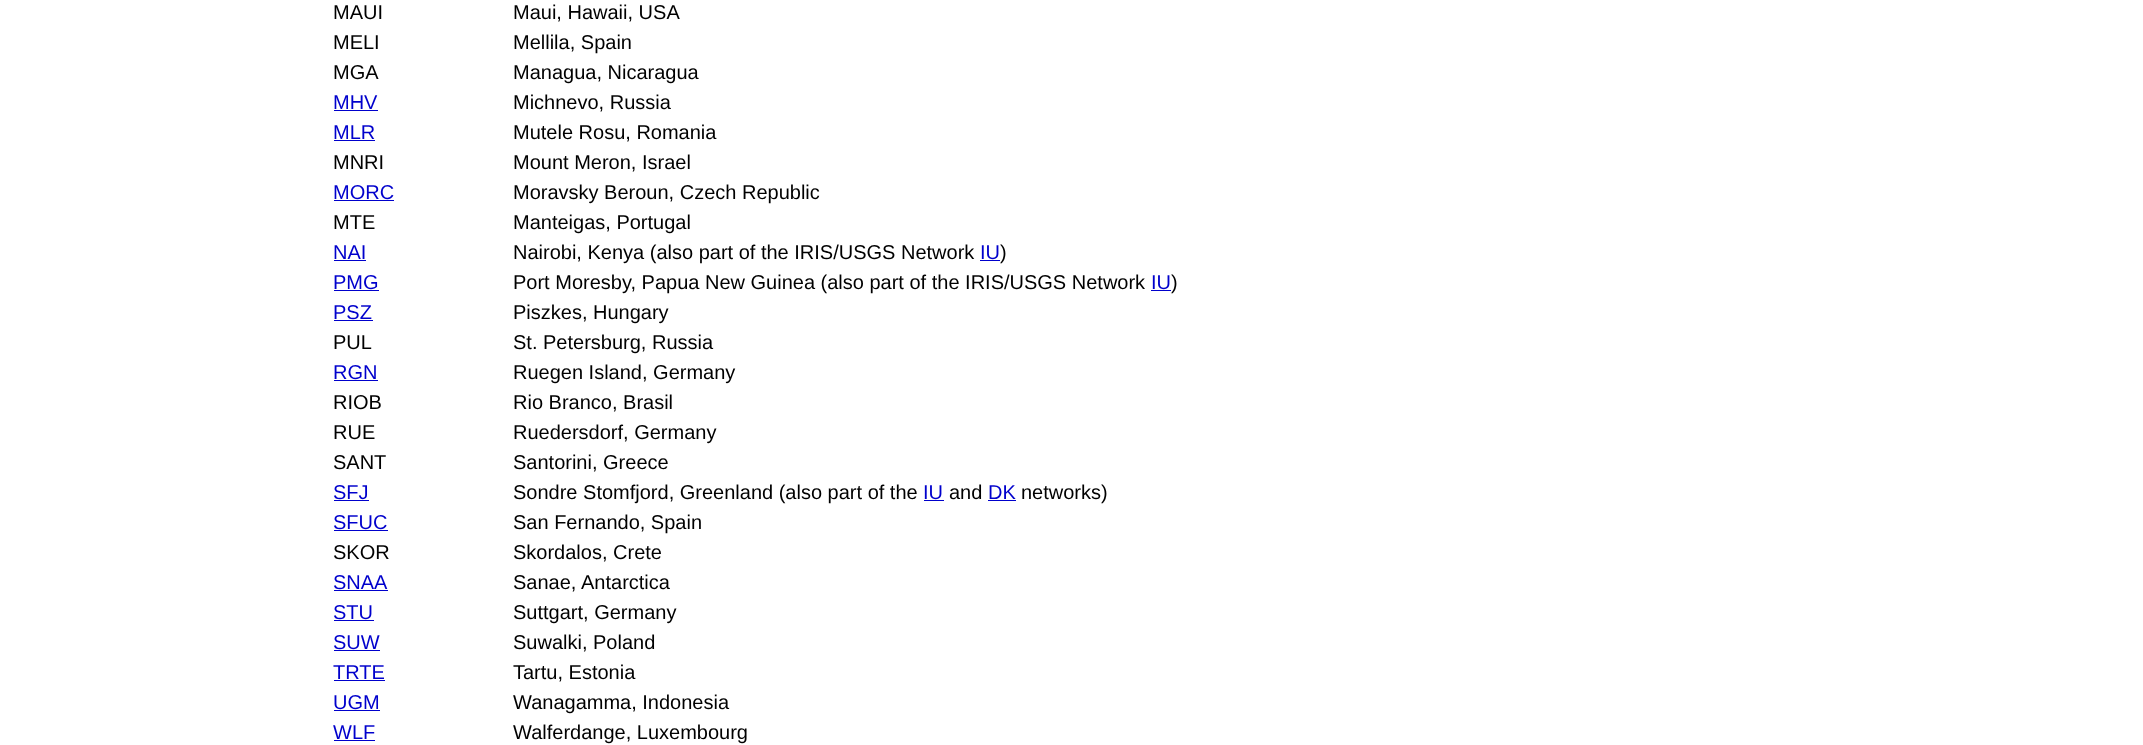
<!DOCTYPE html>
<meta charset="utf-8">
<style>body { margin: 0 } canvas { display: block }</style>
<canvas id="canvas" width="2143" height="745"></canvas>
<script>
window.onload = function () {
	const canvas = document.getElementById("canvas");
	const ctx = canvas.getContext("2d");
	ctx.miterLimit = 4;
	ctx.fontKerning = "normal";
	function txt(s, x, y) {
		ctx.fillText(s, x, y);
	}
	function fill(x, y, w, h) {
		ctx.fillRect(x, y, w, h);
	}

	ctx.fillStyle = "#FFFFFF";
	fill(0, 0, 2143, 745);
	ctx.fillStyle = "#0000CC";
	fill(334, 110, 44, 1);
	fill(334, 140, 41, 1);
	fill(334, 200, 60, 1);
	fill(334, 260, 32, 1);
	fill(980, 260, 20, 1);
	fill(334, 290, 45, 1);
	fill(1151, 290, 20, 1);
	fill(334, 320, 39, 1);
	fill(334, 380, 44, 1);
	fill(334, 500, 35, 1);
	fill(924, 500, 20, 1);
	fill(988, 500, 28, 1);
	fill(334, 530, 54, 1);
	fill(334, 590, 54, 1);
	fill(334, 620, 40, 1);
	fill(334, 650, 46, 1);
	fill(334, 680, 51, 1);
	fill(334, 710, 46, 1);
	fill(334, 740, 41, 1);
	ctx.font = "20px Liberation Sans";
	ctx.fillStyle = "#000000";
	txt("MAUI", 333, 19);
	txt("Maui, Hawaii, USA", 513, 19);
	txt("MELI", 333, 49);
	txt("Mellila, Spain", 513, 49);
	txt("MGA", 333, 79);
	txt("Managua, Nicaragua", 513, 79);
	ctx.fillStyle = "#0000CC";
	txt("MHV", 333, 109);
	ctx.fillStyle = "#000000";
	txt("Michnevo, Russia", 513, 109);
	ctx.fillStyle = "#0000CC";
	txt("MLR", 333, 139);
	ctx.fillStyle = "#000000";
	txt("Mutele Rosu, Romania", 513, 139);
	txt("MNRI", 333, 169);
	txt("Mount Meron, Israel", 513, 169);
	ctx.fillStyle = "#0000CC";
	txt("MORC", 333, 199);
	ctx.fillStyle = "#000000";
	txt("Moravsky Beroun, Czech Republic", 513, 199);
	txt("MTE", 333, 229);
	txt("Manteigas, Portugal", 513, 229);
	ctx.fillStyle = "#0000CC";
	txt("NAI", 333, 259);
	ctx.fillStyle = "#000000";
	txt("Nairobi, Kenya (also part of the IRIS/USGS Network", 513, 259);
	ctx.fillStyle = "#0000CC";
	txt("IU", 980, 259);
	ctx.fillStyle = "#000000";
	txt(")", 1000, 259);
	ctx.fillStyle = "#0000CC";
	txt("PMG", 333, 289);
	ctx.fillStyle = "#000000";
	txt("Port Moresby, Papua New Guinea (also part of the IRIS/USGS Network", 513, 289);
	ctx.fillStyle = "#0000CC";
	txt("IU", 1151, 289);
	ctx.fillStyle = "#000000";
	txt(")", 1171, 289);
	ctx.fillStyle = "#0000CC";
	txt("PSZ", 333, 319);
	ctx.fillStyle = "#000000";
	txt("Piszkes, Hungary", 513, 319);
	txt("PUL", 333, 349);
	txt("St. Petersburg, Russia", 513, 349);
	ctx.fillStyle = "#0000CC";
	txt("RGN", 333, 379);
	ctx.fillStyle = "#000000";
	txt("Ruegen Island, Germany", 513, 379);
	txt("RIOB", 333, 409);
	txt("Rio Branco, Brasil", 513, 409);
	txt("RUE", 333, 439);
	txt("Ruedersdorf, Germany", 513, 439);
	txt("SANT", 333, 469);
	txt("Santorini, Greece", 513, 469);
	ctx.fillStyle = "#0000CC";
	txt("SFJ", 333, 499);
	ctx.fillStyle = "#000000";
	txt("Sondre Stomfjord, Greenland (also part of the", 513, 499);
	ctx.fillStyle = "#0000CC";
	txt("IU", 923, 499);
	ctx.fillStyle = "#000000";
	txt("and", 949, 499);
	ctx.fillStyle = "#0000CC";
	txt("DK", 988, 499);
	ctx.fillStyle = "#000000";
	txt("networks)", 1021, 499);
	ctx.fillStyle = "#0000CC";
	txt("SFUC", 333, 529);
	ctx.fillStyle = "#000000";
	txt("San Fernando, Spain", 513, 529);
	txt("SKOR", 333, 559);
	txt("Skordalos, Crete", 513, 559);
	ctx.fillStyle = "#0000CC";
	txt("SNAA", 333, 589);
	ctx.fillStyle = "#000000";
	txt("Sanae,", 513, 589);
	txt("Antarctica", 581, 589);
	ctx.fillStyle = "#0000CC";
	txt("STU", 333, 619);
	ctx.fillStyle = "#000000";
	txt("Suttgart, Germany", 513, 619);
	ctx.fillStyle = "#0000CC";
	txt("SUW", 333, 649);
	ctx.fillStyle = "#000000";
	txt("Suwalki, Poland", 513, 649);
	ctx.fillStyle = "#0000CC";
	txt("TRTE", 333, 679);
	ctx.fillStyle = "#000000";
	txt("Tartu, Estonia", 513, 679);
	ctx.fillStyle = "#0000CC";
	txt("UGM", 333, 709);
	ctx.fillStyle = "#000000";
	txt("Wanagamma, Indonesia", 513, 709);
	ctx.fillStyle = "#0000CC";
	txt("WLF", 333, 739);
	ctx.fillStyle = "#000000";
	txt("Walferdange, Luxembourg", 513, 739);
};
</script>
